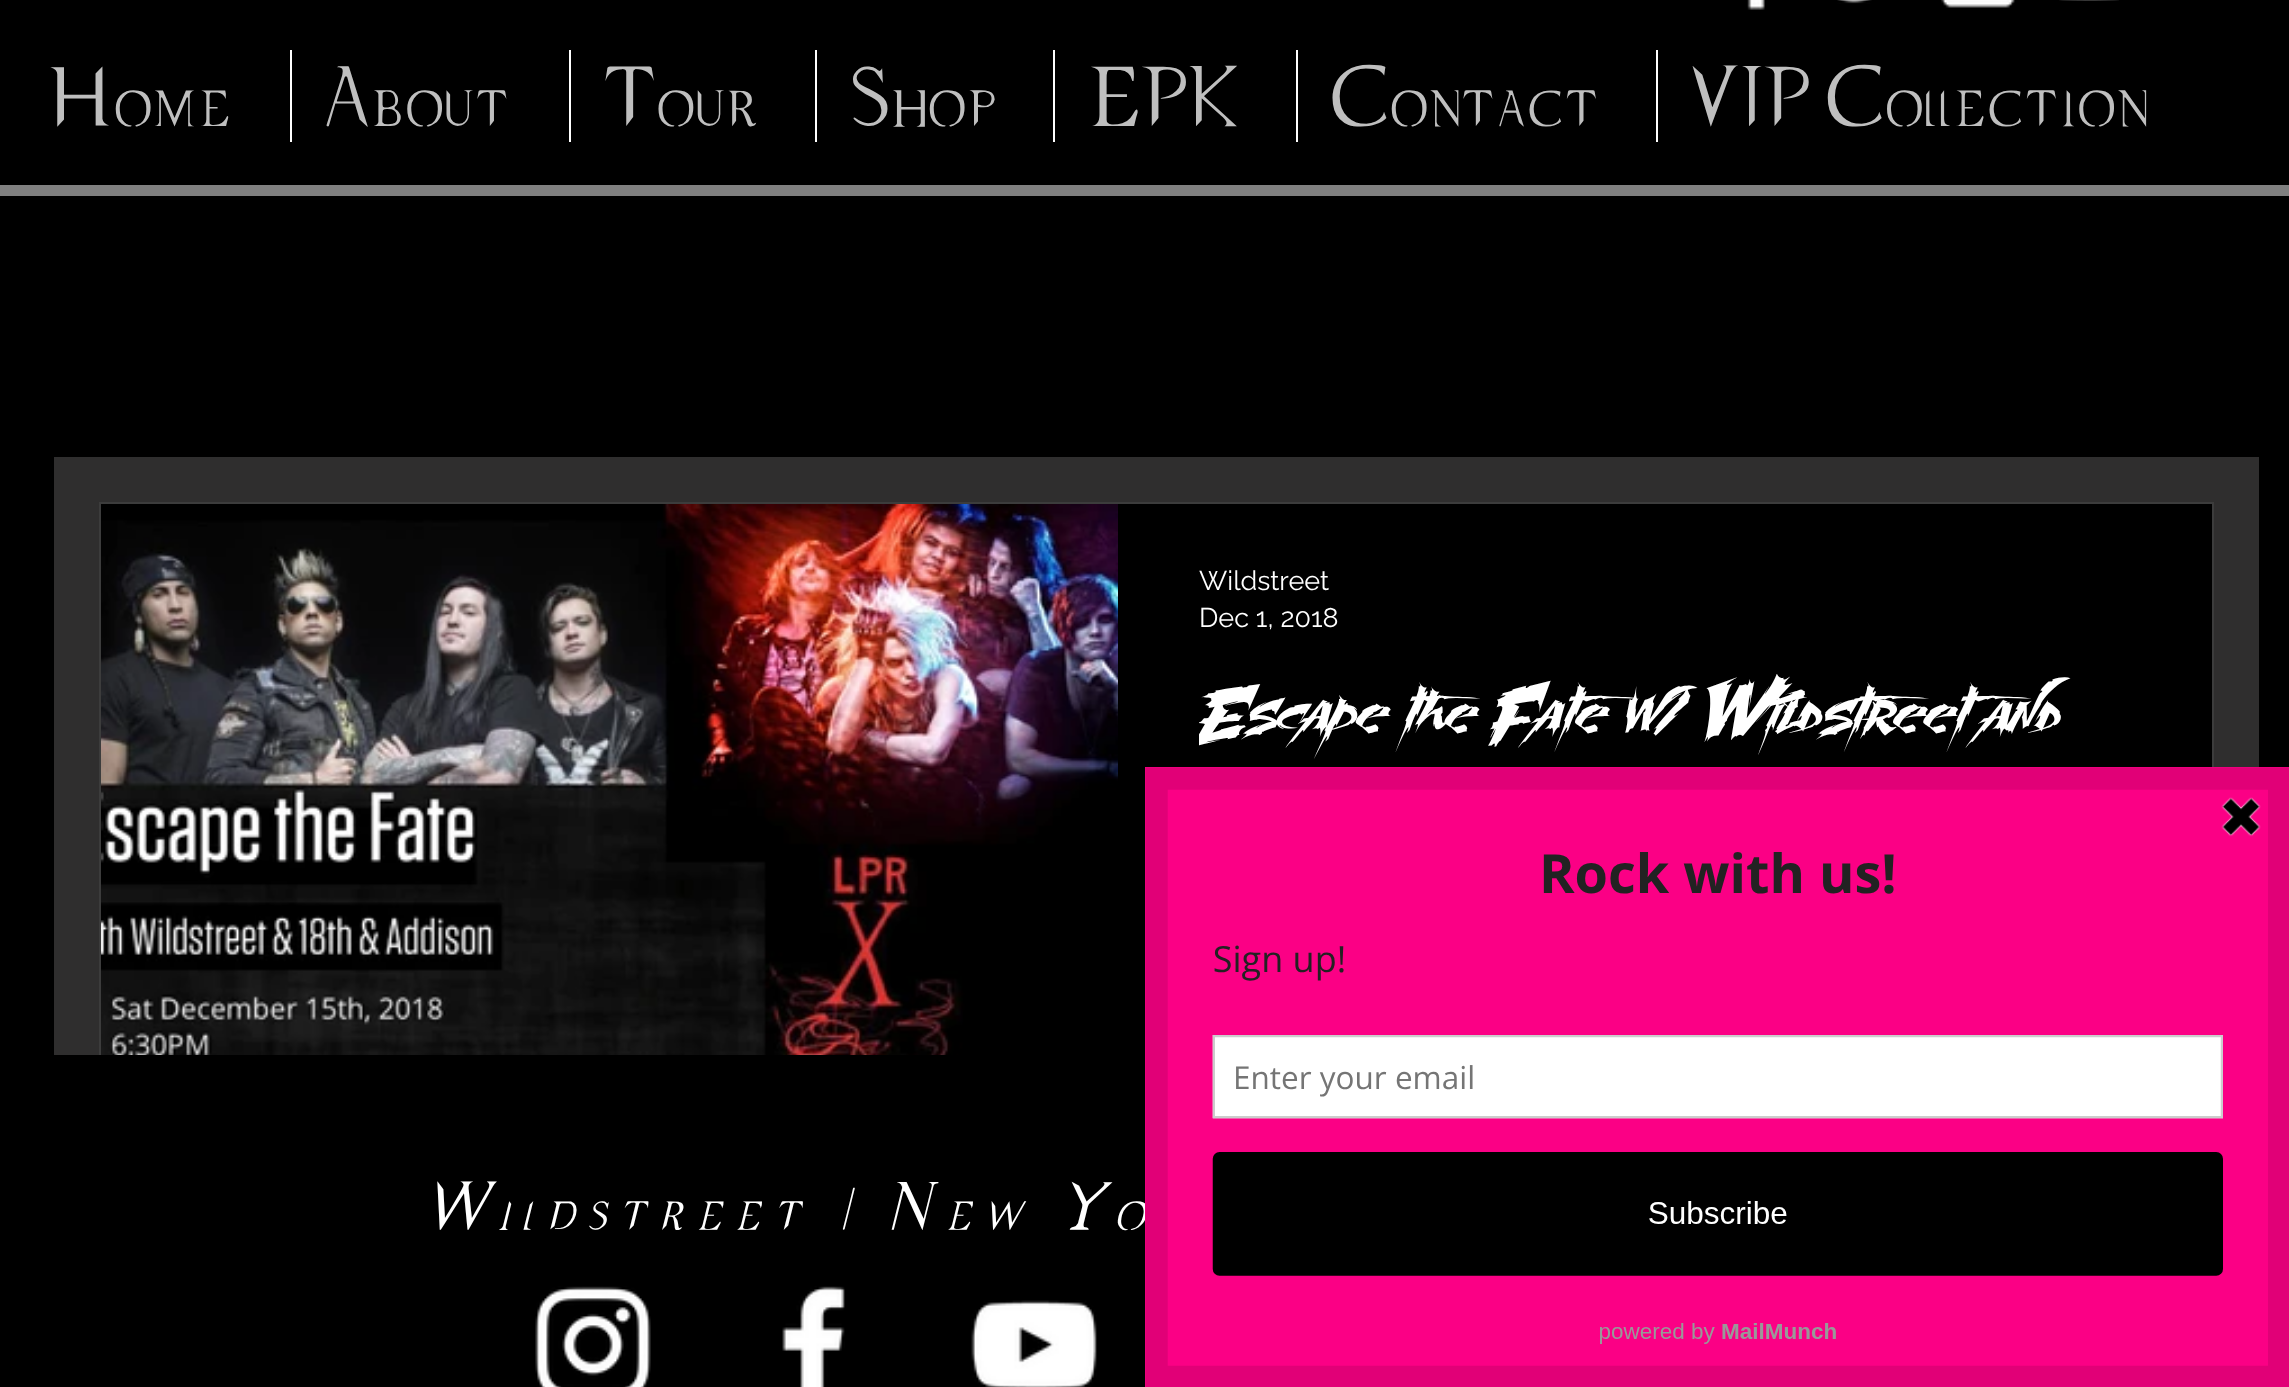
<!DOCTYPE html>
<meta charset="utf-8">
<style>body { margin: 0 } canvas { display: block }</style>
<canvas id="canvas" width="2289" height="1387"></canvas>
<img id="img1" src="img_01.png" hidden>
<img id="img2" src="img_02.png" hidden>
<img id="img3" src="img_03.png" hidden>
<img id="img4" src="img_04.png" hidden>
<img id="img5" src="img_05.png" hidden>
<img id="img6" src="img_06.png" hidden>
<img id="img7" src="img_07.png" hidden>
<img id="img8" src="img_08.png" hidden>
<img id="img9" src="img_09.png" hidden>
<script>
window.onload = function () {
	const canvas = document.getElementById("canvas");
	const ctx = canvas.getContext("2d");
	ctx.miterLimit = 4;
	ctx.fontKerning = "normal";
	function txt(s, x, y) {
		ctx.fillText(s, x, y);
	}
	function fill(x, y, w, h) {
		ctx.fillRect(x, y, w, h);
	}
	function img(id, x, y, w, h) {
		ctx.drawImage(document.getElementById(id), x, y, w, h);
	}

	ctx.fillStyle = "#000000";
	fill(0, 0, 2289, 1387);
	img("img1", 1747, 0, 18, 10);
	img("img2", 1837, 0, 35, 4);
	img("img3", 1941, 0, 74, 8);
	img("img4", 2059, 0, 60, 1);
	ctx.fillStyle = "#FFFFFF";
	fill(290, 50, 2, 92);
	fill(569, 50, 2, 92);
	fill(815, 50, 2, 92);
	fill(1053, 50, 2, 92);
	fill(1296, 50, 2, 92);
	fill(1656, 50, 2, 92);
	ctx.fillStyle = "#808080";
	fill(0, 185, 2289, 11);
	ctx.fillStyle = "#2F2E2E";
	fill(54, 457, 2205, 598);
	ctx.strokeStyle = "#3C3C3C";
	ctx.lineWidth = 2;
	ctx.strokeRect(100, 503, 2113, 765);
	img("img5", 101, 504, 1017, 551);
	ctx.fillStyle = "#000000";
	fill(1118, 504, 1094, 551);
	fill(99, 1055, 1046, 214);
	img("img6", 535, 1286, 116, 101);
	img("img7", 782, 1286, 63, 101);
	img("img8", 971, 1300, 126, 87);
	ctx.font = "56.25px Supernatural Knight";
	ctx.fillStyle = "#BFBFBF";
	txt("Home", 50, 115);
	txt("About", 326, 115);
	txt("Tour", 605, 115);
	txt("Shop", 851, 115);
	txt("EPK", 1089, 115);
	txt("Contact", 1332, 115);
	txt("VIP Collection", 1692, 115);
	ctx.font = "27px Raleway";
	ctx.fillStyle = "#FFFFFF";
	txt("Wildstreet", 1199, 590);
	txt("Dec 1, 2018", 1199, 627);
	ctx.save();
	ctx.beginPath();
	ctx.rect(1199, 664, 932, 304);
	ctx.clip();
	ctx.font = "63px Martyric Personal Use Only";
	txt("Escape the Fate w/ Wildstreet and", 1199, 729);
	ctx.restore();
	ctx.letterSpacing = "11.25px";
	ctx.font = "italic 45px Supernatural Knight";
	txt("Wildstreet | New Yo", 427, 1221);
	img("img9", 1145, 767, 1144, 620);
};
</script>
